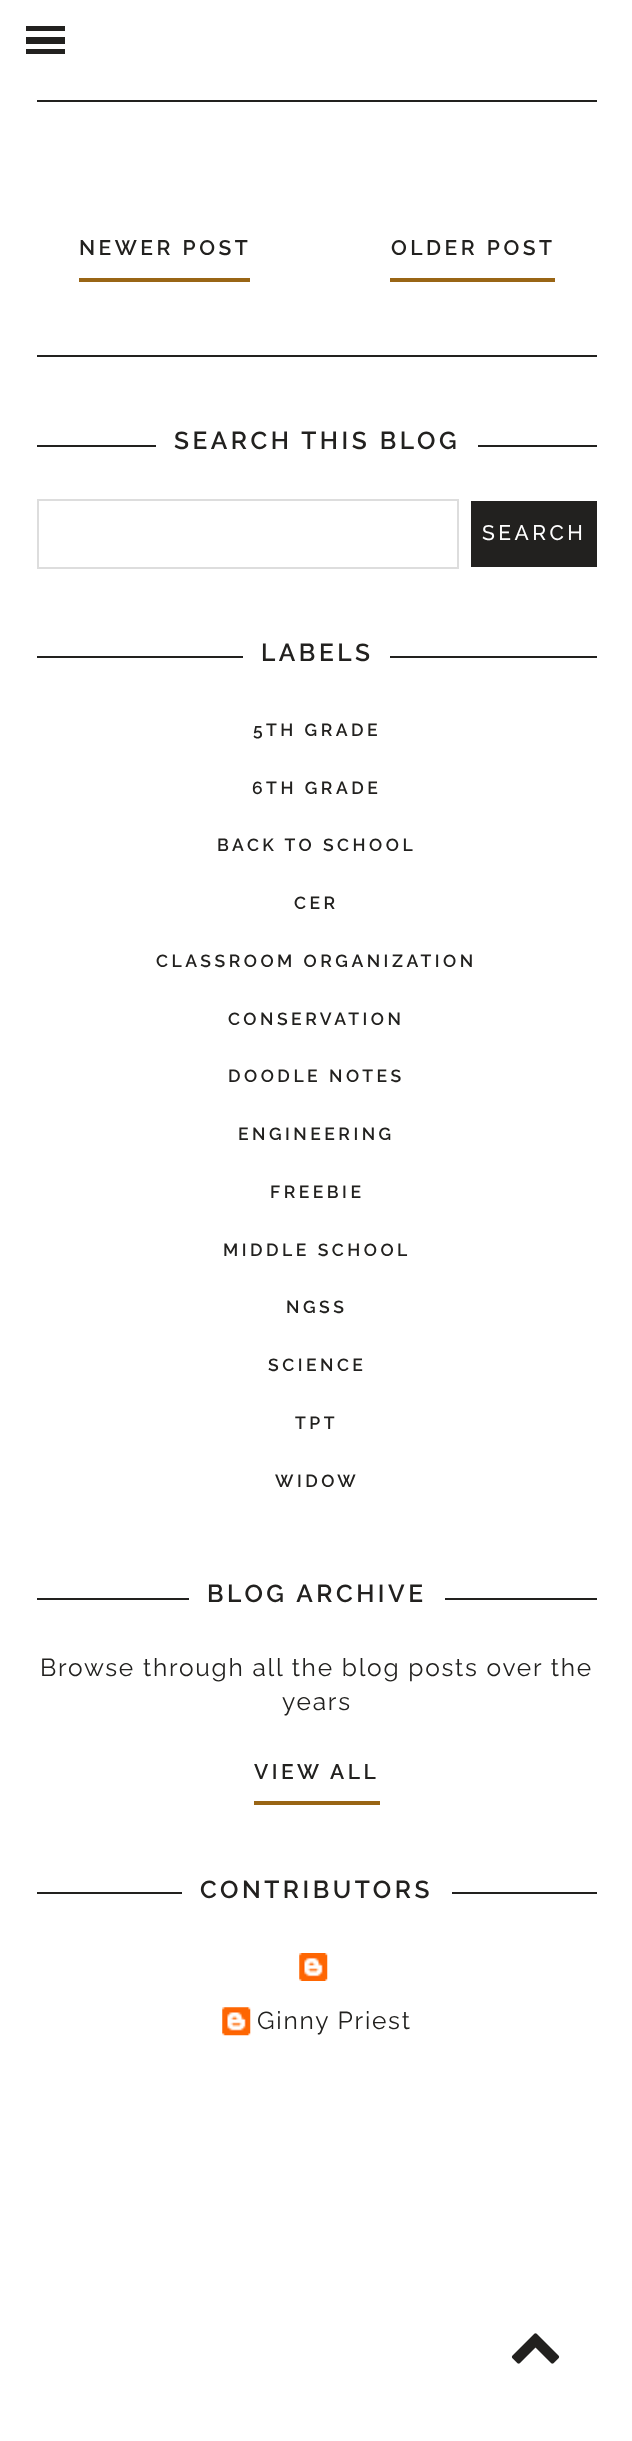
<!DOCTYPE html>
<meta charset="utf-8">
<style>body { margin: 0 } canvas { display: block }</style>
<canvas id="canvas" width="632" height="2441"></canvas>
<img id="img1" src="img_01.png" hidden>
<img id="img2" src="img_02.png" hidden>
<img id="img3" src="img_03.png" hidden>
<script>
window.onload = function () {
	const canvas = document.getElementById("canvas");
	const ctx = canvas.getContext("2d");
	ctx.miterLimit = 4;
	ctx.fontKerning = "normal";
	function txt(s, x, y) {
		ctx.fillText(s, x, y);
	}
	function fill(x, y, w, h) {
		ctx.fillRect(x, y, w, h);
	}
	function img(id, x, y, w, h) {
		ctx.drawImage(document.getElementById(id), x, y, w, h);
	}

	ctx.fillStyle = "#FFFFFF";
	fill(0, 0, 632, 2441);
	ctx.fillStyle = "#22211F";
	fill(26, 26, 39, 5);
	fill(26, 37, 39, 7);
	fill(26, 49, 39, 5);
	fill(37, 100, 560, 2);
	fill(37, 355, 560, 2);
	ctx.fillStyle = "#996515";
	fill(79, 278, 171, 4);
	fill(390, 278, 165, 4);
	ctx.fillStyle = "#22211F";
	fill(37, 445, 560, 2);
	ctx.fillStyle = "#FFFFFF";
	fill(156, 445, 322, 2);
	ctx.strokeStyle = "#DDDDDD";
	ctx.lineWidth = 2;
	ctx.strokeRect(38, 500, 420, 68);
	ctx.fillStyle = "#22211F";
	fill(471, 501, 126, 66);
	fill(37, 656, 560, 2);
	ctx.fillStyle = "#FFFFFF";
	fill(243, 656, 147, 2);
	ctx.fillStyle = "#22211F";
	fill(37, 1598, 560, 2);
	ctx.fillStyle = "#FFFFFF";
	fill(189, 1598, 256, 2);
	ctx.fillStyle = "#996515";
	fill(254, 1801, 126, 4);
	ctx.fillStyle = "#22211F";
	fill(37, 1892, 560, 2);
	ctx.fillStyle = "#FFFFFF";
	fill(182, 1892, 270, 2);
	img("img1", 299, 1953, 29, 28);
	img("img2", 222, 2007, 29, 29);
	img("img3", 511, 2333, 49, 31);
	ctx.letterSpacing = "3.5px";
	ctx.font = "600 21px Raleway";
	ctx.fillStyle = "#22211F";
	txt("NEWER POST", 79, 255);
	txt("OLDER POST", 391, 255);
	ctx.font = "600 24.5px Raleway";
	txt("SEARCH THIS BLOG", 174, 449);
	ctx.font = "500 21px Raleway";
	ctx.fillStyle = "#FFFFFF";
	txt("SEARCH", 482, 540);
	ctx.font = "600 24.5px Raleway";
	ctx.fillStyle = "#22211F";
	txt("LABELS", 261, 661);
	ctx.font = "600 17.5px Raleway";
	txt("5TH GRADE", 253, 736);
	txt("6TH GRADE", 252, 794);
	txt("BACK TO SCHOOL", 217, 851);
	txt("CER", 294, 909);
	txt("CLASSROOM ORGANIZATION", 156, 967);
	txt("CONSERVATION", 228, 1025);
	txt("DOODLE NOTES", 228, 1082);
	txt("ENGINEERING", 238, 1140);
	txt("FREEBIE", 270, 1198);
	txt("MIDDLE SCHOOL", 223, 1256);
	txt("NGSS", 286, 1313);
	txt("SCIENCE", 268, 1371);
	txt("TPT", 295, 1429);
	txt("WIDOW", 275, 1487);
	ctx.font = "600 24.5px Raleway";
	txt("BLOG ARCHIVE", 207, 1602);
	ctx.letterSpacing = "1.75px";
	ctx.font = "24.5px Raleway";
	txt("Browse through all the blog posts over the", 40, 1676);
	txt("years", 282, 1710);
	ctx.letterSpacing = "3.5px";
	ctx.font = "600 21px Raleway";
	txt("VIEW ALL", 254, 1779);
	ctx.font = "600 24.5px Raleway";
	txt("CONTRIBUTORS", 200, 1898);
	ctx.letterSpacing = "1.75px";
	ctx.font = "24.5px Raleway";
	txt("Ginny Priest", 257, 2029);
};
</script>
